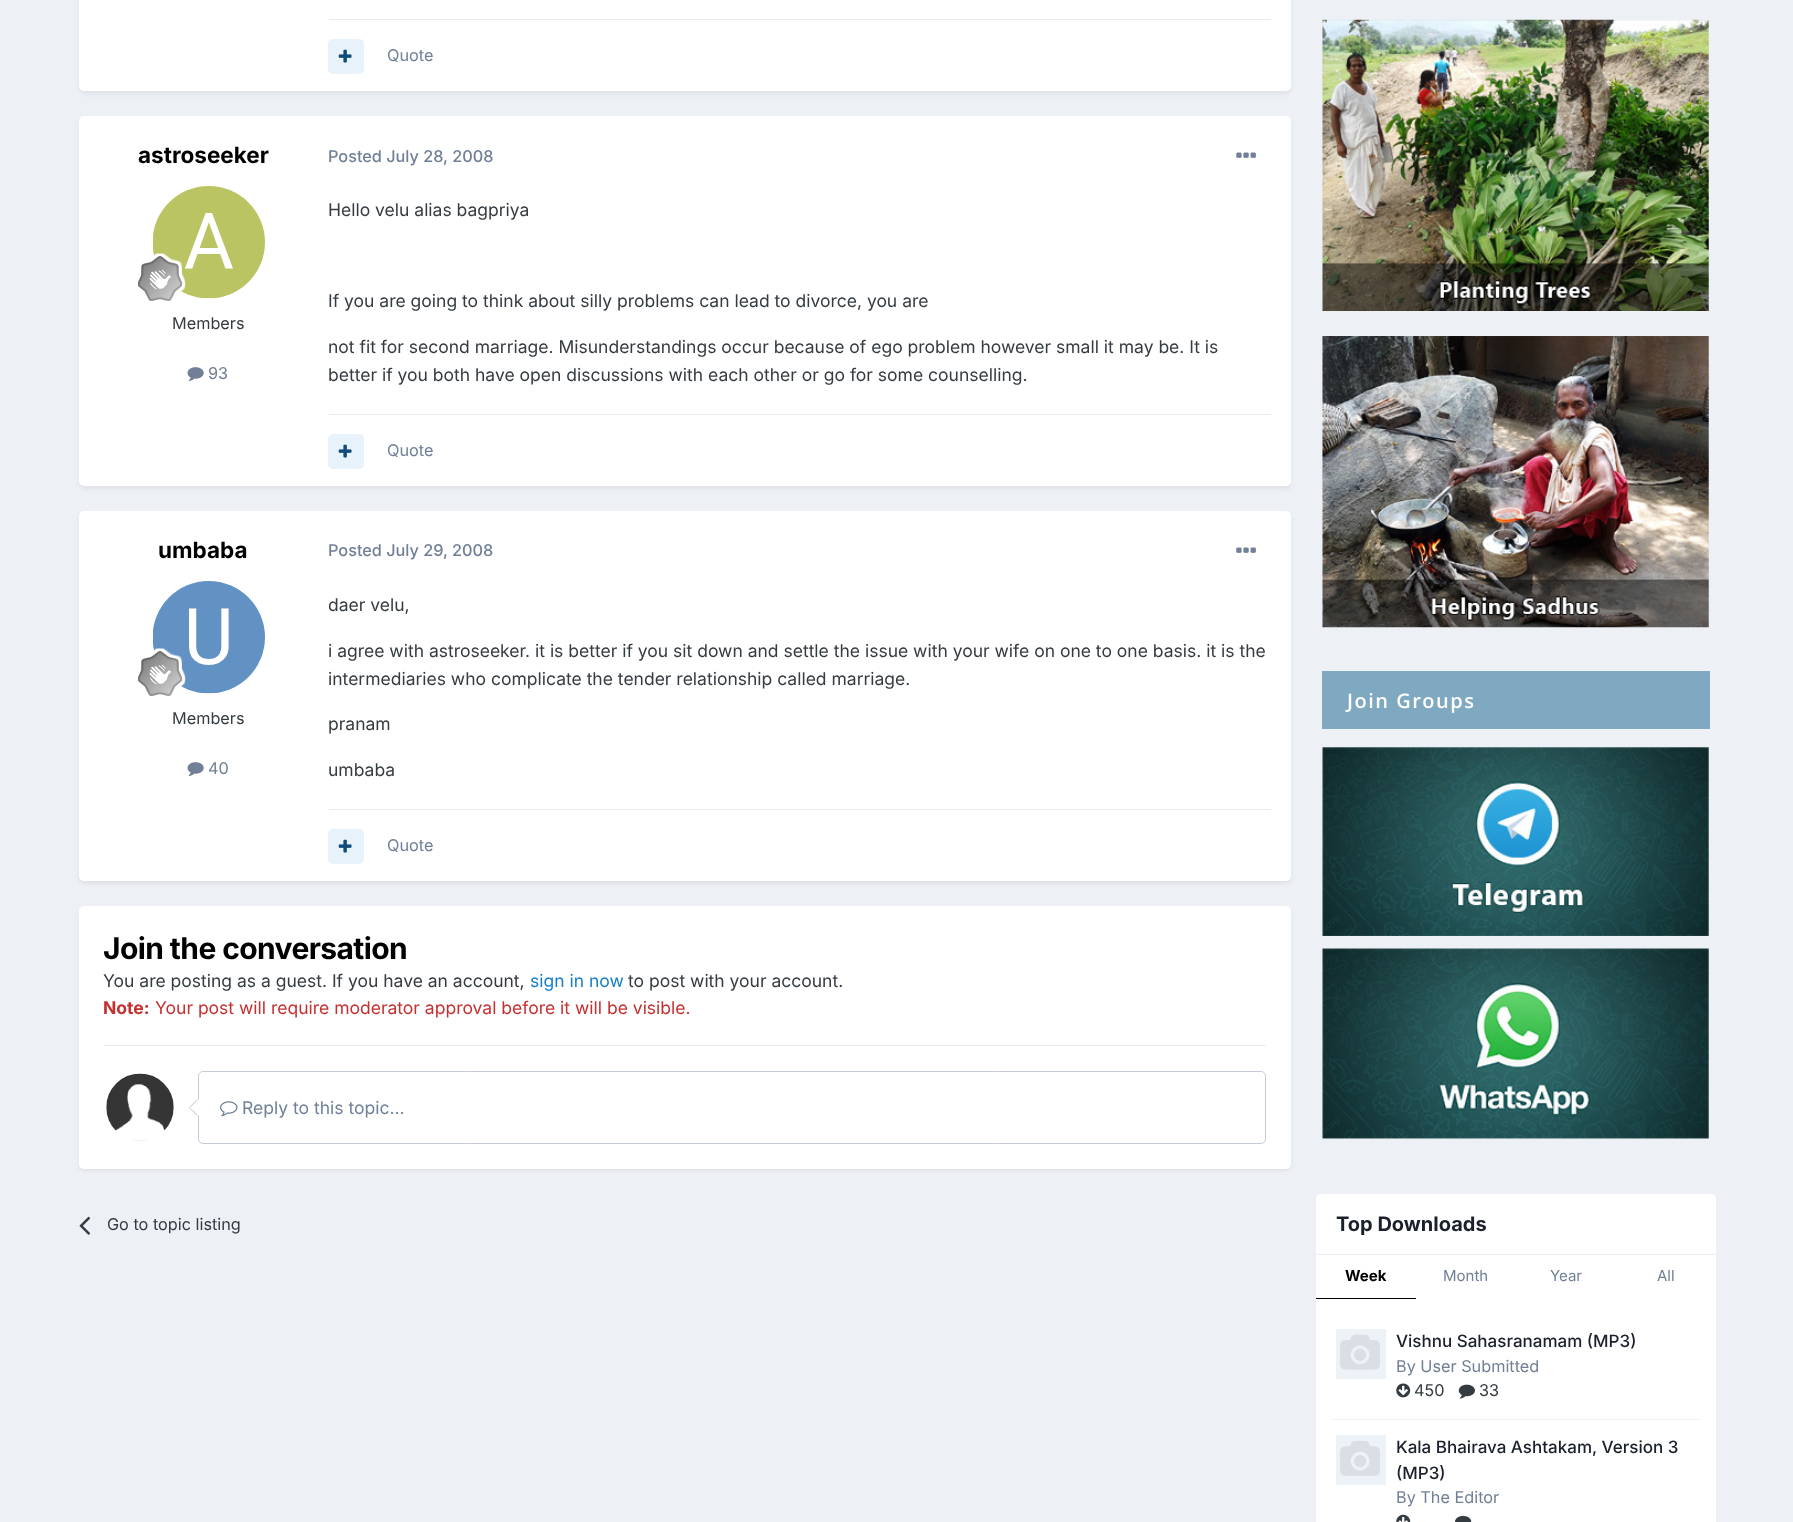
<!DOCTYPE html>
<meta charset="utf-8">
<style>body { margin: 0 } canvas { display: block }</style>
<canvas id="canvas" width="1793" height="1522"></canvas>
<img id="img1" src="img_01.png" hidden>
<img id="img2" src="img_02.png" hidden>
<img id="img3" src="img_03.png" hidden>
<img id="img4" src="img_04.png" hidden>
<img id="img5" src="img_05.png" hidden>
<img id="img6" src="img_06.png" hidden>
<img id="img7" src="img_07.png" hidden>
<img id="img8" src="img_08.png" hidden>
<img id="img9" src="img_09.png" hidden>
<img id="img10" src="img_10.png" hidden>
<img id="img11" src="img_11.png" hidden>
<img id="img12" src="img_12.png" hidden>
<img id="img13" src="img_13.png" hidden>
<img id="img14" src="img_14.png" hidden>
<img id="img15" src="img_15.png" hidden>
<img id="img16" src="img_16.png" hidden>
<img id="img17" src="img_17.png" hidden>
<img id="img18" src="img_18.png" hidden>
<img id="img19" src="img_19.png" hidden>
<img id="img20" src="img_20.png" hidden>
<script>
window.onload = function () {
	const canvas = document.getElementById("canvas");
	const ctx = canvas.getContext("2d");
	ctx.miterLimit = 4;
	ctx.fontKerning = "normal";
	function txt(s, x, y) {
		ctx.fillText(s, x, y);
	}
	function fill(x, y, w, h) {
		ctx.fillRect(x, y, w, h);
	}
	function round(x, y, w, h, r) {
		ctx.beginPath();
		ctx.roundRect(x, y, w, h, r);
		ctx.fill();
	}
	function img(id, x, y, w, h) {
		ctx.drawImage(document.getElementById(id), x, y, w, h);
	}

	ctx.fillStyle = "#EDF0F4";
	fill(0, 0, 1793, 1522);
	ctx.fillStyle = "rgba(45, 55, 72, 0.1)";
	ctx.filter = "blur(2.5px)";
	ctx.beginPath();
	ctx.roundRect(80, -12, 1210, 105, 4);
	ctx.fill();
	ctx.filter = "none";
	ctx.fillStyle = "#FFFFFF";
	round(79, -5, 1212, 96, 5);
	ctx.fillStyle = "#EBECEC";
	fill(329, 19, 942, 1);
	ctx.fillStyle = "#E8F2FA";
	round(328, 39, 36, 35, 5);
	img("img1", 338, 49, 14, 14);
	ctx.fillStyle = "rgba(45, 55, 72, 0.1)";
	ctx.filter = "blur(2.5px)";
	ctx.beginPath();
	ctx.roundRect(80, 120, 1210, 368, 4);
	ctx.fill();
	ctx.filter = "none";
	ctx.fillStyle = "#FFFFFF";
	round(79, 116, 1212, 370, 5);
	img("img2", 153, 186, 112, 113);
	img("img3", 138, 253, 48, 48);
	img("img4", 187, 367, 17, 14);
	img("img5", 1236, 152, 20, 6);
	ctx.fillStyle = "#EBECEC";
	fill(329, 414, 942, 1);
	ctx.fillStyle = "#E8F2FA";
	round(328, 434, 36, 35, 5);
	img("img1", 338, 444, 14, 14);
	ctx.fillStyle = "rgba(45, 55, 72, 0.1)";
	ctx.filter = "blur(2.5px)";
	ctx.beginPath();
	ctx.roundRect(80, 515, 1210, 368, 4);
	ctx.fill();
	ctx.filter = "none";
	ctx.fillStyle = "#FFFFFF";
	round(79, 511, 1212, 370, 5);
	img("img6", 153, 581, 112, 113);
	img("img7", 138, 648, 48, 48);
	img("img4", 187, 762, 17, 14);
	img("img5", 1236, 547, 20, 6);
	ctx.fillStyle = "#EBECEC";
	fill(329, 809, 942, 1);
	ctx.fillStyle = "#E8F2FA";
	round(328, 829, 36, 35, 5);
	img("img1", 338, 839, 14, 14);
	ctx.fillStyle = "rgba(45, 55, 72, 0.1)";
	ctx.filter = "blur(2.5px)";
	ctx.beginPath();
	ctx.roundRect(80, 910, 1210, 260, 4);
	ctx.fill();
	ctx.filter = "none";
	ctx.fillStyle = "#FFFFFF";
	round(79, 906, 1212, 263, 5);
	ctx.fillStyle = "#EAECEF";
	fill(104, 1045, 1162, 1);
	img("img8", 106, 1073, 68, 68);
	ctx.beginPath();
	ctx.roundRect(198.5, 1071.5, 1067, 72, 4.5);
	ctx.strokeStyle = "#C6CCD5";
	ctx.stroke();
	ctx.fillStyle = "#C6CCD5";
	ctx.beginPath();
	ctx.moveTo(197.5, 1099);
	ctx.lineTo(197.5, 1116);
	ctx.lineTo(189, 1107.5);
	ctx.closePath();
	ctx.fill();
	ctx.fillStyle = "#FFFFFF";
	ctx.beginPath();
	ctx.moveTo(199, 1099);
	ctx.lineTo(199, 1116);
	ctx.lineTo(190, 1107.5);
	ctx.closePath();
	ctx.fill();
	img("img9", 220, 1101, 18, 16);
	img("img10", 79, 1216, 12, 19);
	img("img11", 1322, 19, 387, 292);
	img("img12", 1322, 336, 387, 292);
	ctx.fillStyle = "#7EA9C0";
	fill(1322, 671, 388, 58);
	img("img13", 1322, 747, 387, 189);
	img("img14", 1322, 948, 387, 191);
	ctx.fillStyle = "#FFFFFF";
	round(1316, 1194, 400, 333, 5);
	ctx.beginPath();
	ctx.roundRect(1316, 1194, 400, 61, [5, 5, 0, 0]);
	ctx.fill();
	ctx.fillStyle = "#EAECEF";
	fill(1316, 1254, 400, 1);
	ctx.fillStyle = "#000000";
	fill(1316, 1298, 100, 1);
	ctx.fillStyle = "#F1F2F5";
	fill(1331, 1419, 370, 1);
	ctx.fillStyle = "#EDF2F7";
	fill(1336, 1329, 50, 50);
	img("img15", 1340, 1334, 40, 36);
	img("img16", 1396, 1383, 15, 15);
	img("img17", 1458, 1384, 17, 15);
	fill(1336, 1435, 50, 50);
	img("img18", 1340, 1441, 40, 35);
	img("img19", 1396, 1514, 15, 8);
	img("img20", 1455, 1515, 17, 7);
	ctx.font = "16.25px Inter";
	ctx.fillStyle = "#718096";
	txt("Quote", 387, 61);
	ctx.font = "bold 22.5px Inter";
	ctx.fillStyle = "#000000";
	txt("astroseeker", 138, 163);
	ctx.font = "16.25px Inter";
	ctx.fillStyle = "#353C41";
	txt("Members", 172, 329);
	ctx.fillStyle = "#718096";
	txt("93", 208, 379);
	ctx.font = "500 16.25px Inter";
	txt("Posted July 28, 2008", 328, 162);
	ctx.font = "17.5px Inter";
	ctx.fillStyle = "#353C41";
	txt("Hello velu alias bagpriya", 328, 216);
	txt("If you are going to think about silly problems can lead to divorce, you are", 328, 307);
	txt("not fit for second marriage. Misunderstandings occur because of ego problem however small it may be. It is", 328, 353);
	txt("better if you both have open discussions with each other or go for some counselling.", 328, 381);
	ctx.font = "16.25px Inter";
	ctx.fillStyle = "#718096";
	txt("Quote", 387, 456);
	ctx.font = "bold 22.5px Inter";
	ctx.fillStyle = "#000000";
	txt("umbaba", 158, 558);
	ctx.font = "16.25px Inter";
	ctx.fillStyle = "#353C41";
	txt("Members", 172, 724);
	ctx.fillStyle = "#718096";
	txt("40", 208, 774);
	ctx.font = "500 16.25px Inter";
	txt("Posted July 29, 2008", 328, 556);
	ctx.font = "17.5px Inter";
	ctx.fillStyle = "#353C41";
	txt("daer velu,", 328, 611);
	txt("i agree with astroseeker. it is better if you sit down and settle the issue with your wife on one to one basis. it is the", 328, 657);
	txt("intermediaries who complicate the tender relationship called marriage.", 328, 685);
	txt("pranam", 328, 730);
	txt("umbaba", 328, 776);
	ctx.font = "16.25px Inter";
	ctx.fillStyle = "#718096";
	txt("Quote", 387, 851);
	ctx.letterSpacing = "-0.6px";
	ctx.font = "bold 30px Inter";
	ctx.fillStyle = "#000000";
	txt("Join the conversation", 103, 959);
	ctx.letterSpacing = "0px";
	ctx.font = "17.5px Inter";
	ctx.fillStyle = "#353C41";
	txt("You are posting as a guest. If you have an account,", 103, 987);
	ctx.fillStyle = "#177EC9";
	txt("sign in now", 530, 987);
	ctx.fillStyle = "#353C41";
	txt("to post with your account.", 628, 987);
	ctx.font = "bold 17.5px Inter";
	ctx.fillStyle = "#C53030";
	txt("Note:", 103, 1014);
	ctx.font = "17.5px Inter";
	txt("Your post will require moderator approval before it will be visible.", 155, 1014);
	ctx.fillStyle = "#718096";
	txt("Reply to this topic...", 242, 1114);
	ctx.font = "16.25px Inter";
	ctx.fillStyle = "#353C41";
	txt("Go to topic listing", 107, 1230);
	ctx.letterSpacing = "1.5px";
	ctx.font = "600 20px Open Sans";
	ctx.fillStyle = "#FFFFFF";
	txt("Join Groups", 1347, 708);
	ctx.letterSpacing = "0px";
	ctx.font = "bold 20px Inter";
	ctx.fillStyle = "#1A202C";
	txt("Top Downloads", 1336, 1231);
	ctx.font = "bold 15px Inter";
	ctx.fillStyle = "#000000";
	txt("Week", 1345, 1281);
	ctx.font = "15px Inter";
	ctx.fillStyle = "#718096";
	txt("Month", 1443, 1281);
	txt("Year", 1550, 1281);
	txt("All", 1657, 1281);
	ctx.font = "500 17px Inter";
	ctx.fillStyle = "#1A202C";
	txt("Vishnu Sahasranamam (MP3)", 1396, 1347);
	ctx.font = "16.25px Inter";
	ctx.fillStyle = "#718096";
	txt("By User Submitted", 1396, 1372);
	ctx.fillStyle = "#353C41";
	txt("450", 1414, 1396);
	txt("33", 1479, 1396);
	ctx.font = "500 17px Inter";
	ctx.fillStyle = "#1A202C";
	txt("Kala Bhairava Ashtakam, Version 3", 1396, 1453);
	txt("(MP3)", 1396, 1479);
	ctx.font = "16.25px Inter";
	ctx.fillStyle = "#718096";
	txt("By The Editor", 1396, 1503);
};
</script>
